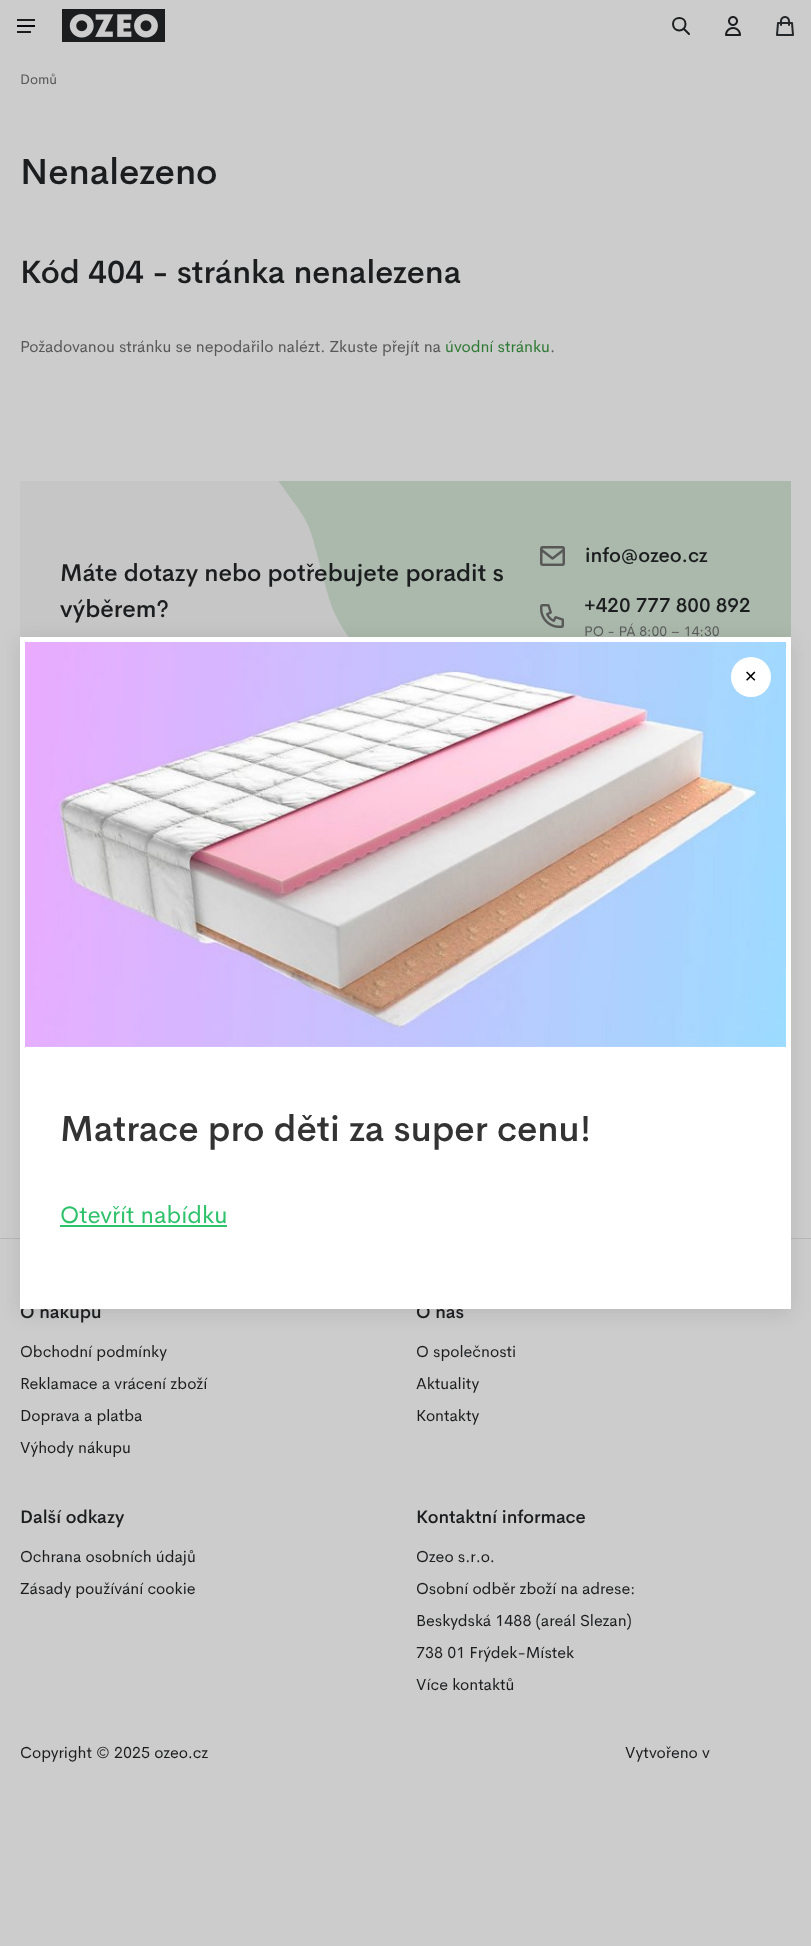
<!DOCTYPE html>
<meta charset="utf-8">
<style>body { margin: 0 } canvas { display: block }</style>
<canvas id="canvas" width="811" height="1946"></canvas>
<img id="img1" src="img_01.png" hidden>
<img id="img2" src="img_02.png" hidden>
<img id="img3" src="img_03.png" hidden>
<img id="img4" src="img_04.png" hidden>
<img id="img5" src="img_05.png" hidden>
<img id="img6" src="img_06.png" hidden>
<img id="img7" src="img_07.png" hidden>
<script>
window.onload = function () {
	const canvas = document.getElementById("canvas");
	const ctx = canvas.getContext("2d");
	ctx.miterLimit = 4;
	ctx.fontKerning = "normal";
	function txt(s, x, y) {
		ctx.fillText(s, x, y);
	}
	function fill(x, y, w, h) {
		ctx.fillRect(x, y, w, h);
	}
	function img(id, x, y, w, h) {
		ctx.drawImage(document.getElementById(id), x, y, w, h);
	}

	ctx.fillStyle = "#CCCCCC";
	fill(0, 0, 811, 1946);
	ctx.fillStyle = "#05060B";
	fill(17, 25, 18, 2);
	ctx.fillStyle = "#1B1D1F";
	fill(17, 19, 18, 2);
	fill(17, 31, 14, 2);
	img("img1", 62, 9, 103, 33);
	ctx.beginPath();
	ctx.moveTo(689, 34);
	ctx.lineTo(683.5, 28.5);
	ctx.closePath();
	ctx.moveTo(685.5, 24);
	ctx.bezierCurveTo(685.5, 32.5, 673, 32.5, 673, 24);
	ctx.bezierCurveTo(673, 16, 685.5, 16, 685.5, 24);
	ctx.closePath();
	ctx.strokeStyle = "#1B1D1F";
	ctx.lineWidth = 2;
	ctx.lineCap = "round";
	ctx.lineJoin = "round";
	ctx.stroke();
	img("img2", 725, 16, 16, 20);
	img("img3", 776, 16, 18, 20);
	ctx.fillStyle = "#C6C6C6";
	fill(20, 481, 771, 156);
	img("img4", 278, 481, 513, 156);
	img("img5", 540, 546, 25, 20);
	img("img6", 540, 604, 24, 24);
	ctx.fillStyle = "#B7B7B7";
	fill(0, 1238, 811, 1);
	ctx.fillStyle = "rgba(0, 0, 0, 0.1)";
	ctx.filter = "blur(10px)";
	ctx.beginPath();
	ctx.rect(20, 641, 771, 672);
	ctx.fill();
	ctx.filter = "none";
	ctx.font = "14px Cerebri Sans";
	ctx.fillStyle = "#585858";
	txt("Domů", 20, 84);
	ctx.font = "500 36px Cerebri Sans";
	ctx.fillStyle = "#1B1D1F";
	txt("Nenalezeno", 20, 184);
	ctx.font = "500 32px Cerebri Sans";
	txt("Kód 404 - stránka nenalezena", 20, 283);
	ctx.font = "16px Cerebri Sans";
	ctx.fillStyle = "#585858";
	txt("Požadovanou stránku se nepodařilo nalézt. Zkuste přejít na", 20, 352);
	ctx.fillStyle = "#2E7A34";
	txt("úvodní stránku", 445, 352);
	ctx.fillStyle = "#585858";
	txt(".", 550, 352);
	ctx.font = "500 24px Cerebri Sans";
	ctx.fillStyle = "#1B1D1F";
	txt("Máte dotazy nebo potřebujete poradit s", 60, 581);
	txt("výběrem?", 60, 617);
	ctx.font = "500 20px Cerebri Sans";
	txt("info@ozeo.cz", 585, 562);
	txt("+420 777 800 892", 584, 612);
	ctx.font = "14px Cerebri Sans";
	ctx.fillStyle = "#585858";
	txt("PO - PÁ 8:00 – 14:30", 584, 636);
	ctx.font = "500 18px Cerebri Sans";
	ctx.fillStyle = "#1B1D1F";
	txt("O nákupu", 20, 1318);
	ctx.font = "16px Cerebri Sans";
	txt("Obchodní podmínky", 20, 1357);
	txt("Reklamace a vrácení zboží", 20, 1389);
	txt("Doprava a platba", 20, 1421);
	txt("Výhody nákupu", 20, 1453);
	ctx.font = "500 18px Cerebri Sans";
	txt("O nás", 416, 1318);
	ctx.fillStyle = "#FFFFFF";
	fill(20, 637, 771, 672);
	img("img7", 25, 642, 761, 405);
	ctx.beginPath();
	ctx.arc(751, 677, 20, 0, Math.PI * 2);
	ctx.fill();
	ctx.font = "16px DejaVu Sans";
	ctx.fillStyle = "#000000";
	txt("✕", 744, 682);
	ctx.font = "24px Cerebri Sans";
	ctx.fillStyle = "#2DC26B";
	txt("Otevřít nabídku", 60, 1223);
	fill(60, 1225, 167, 2);
	ctx.font = "500 36px Cerebri Sans";
	ctx.fillStyle = "#333333";
	txt("Matrace pro děti za super cenu!", 60, 1141);
	ctx.font = "16px Cerebri Sans";
	ctx.fillStyle = "#1B1D1F";
	txt("O společnosti", 416, 1357);
	txt("Aktuality", 416, 1389);
	txt("Kontakty", 416, 1421);
	ctx.font = "500 18px Cerebri Sans";
	txt("Další odkazy", 20, 1523);
	ctx.font = "16px Cerebri Sans";
	txt("Ochrana osobních údajů", 20, 1562);
	txt("Zásady používání cookie", 20, 1594);
	ctx.font = "500 18px Cerebri Sans";
	txt("Kontaktní informace", 416, 1523);
	ctx.font = "16px Cerebri Sans";
	txt("Ozeo s.r.o.", 416, 1562);
	txt("Osobní odběr zboží na adrese:", 416, 1594);
	txt("Beskydská 1488 (areál Slezan)", 416, 1626);
	txt("738 01 Frýdek-Místek", 416, 1658);
	txt("Více kontaktů", 416, 1690);
	txt("Copyright © 2025 ozeo.cz", 20, 1758);
	txt("Vytvořeno v", 625, 1758);
};
</script>
